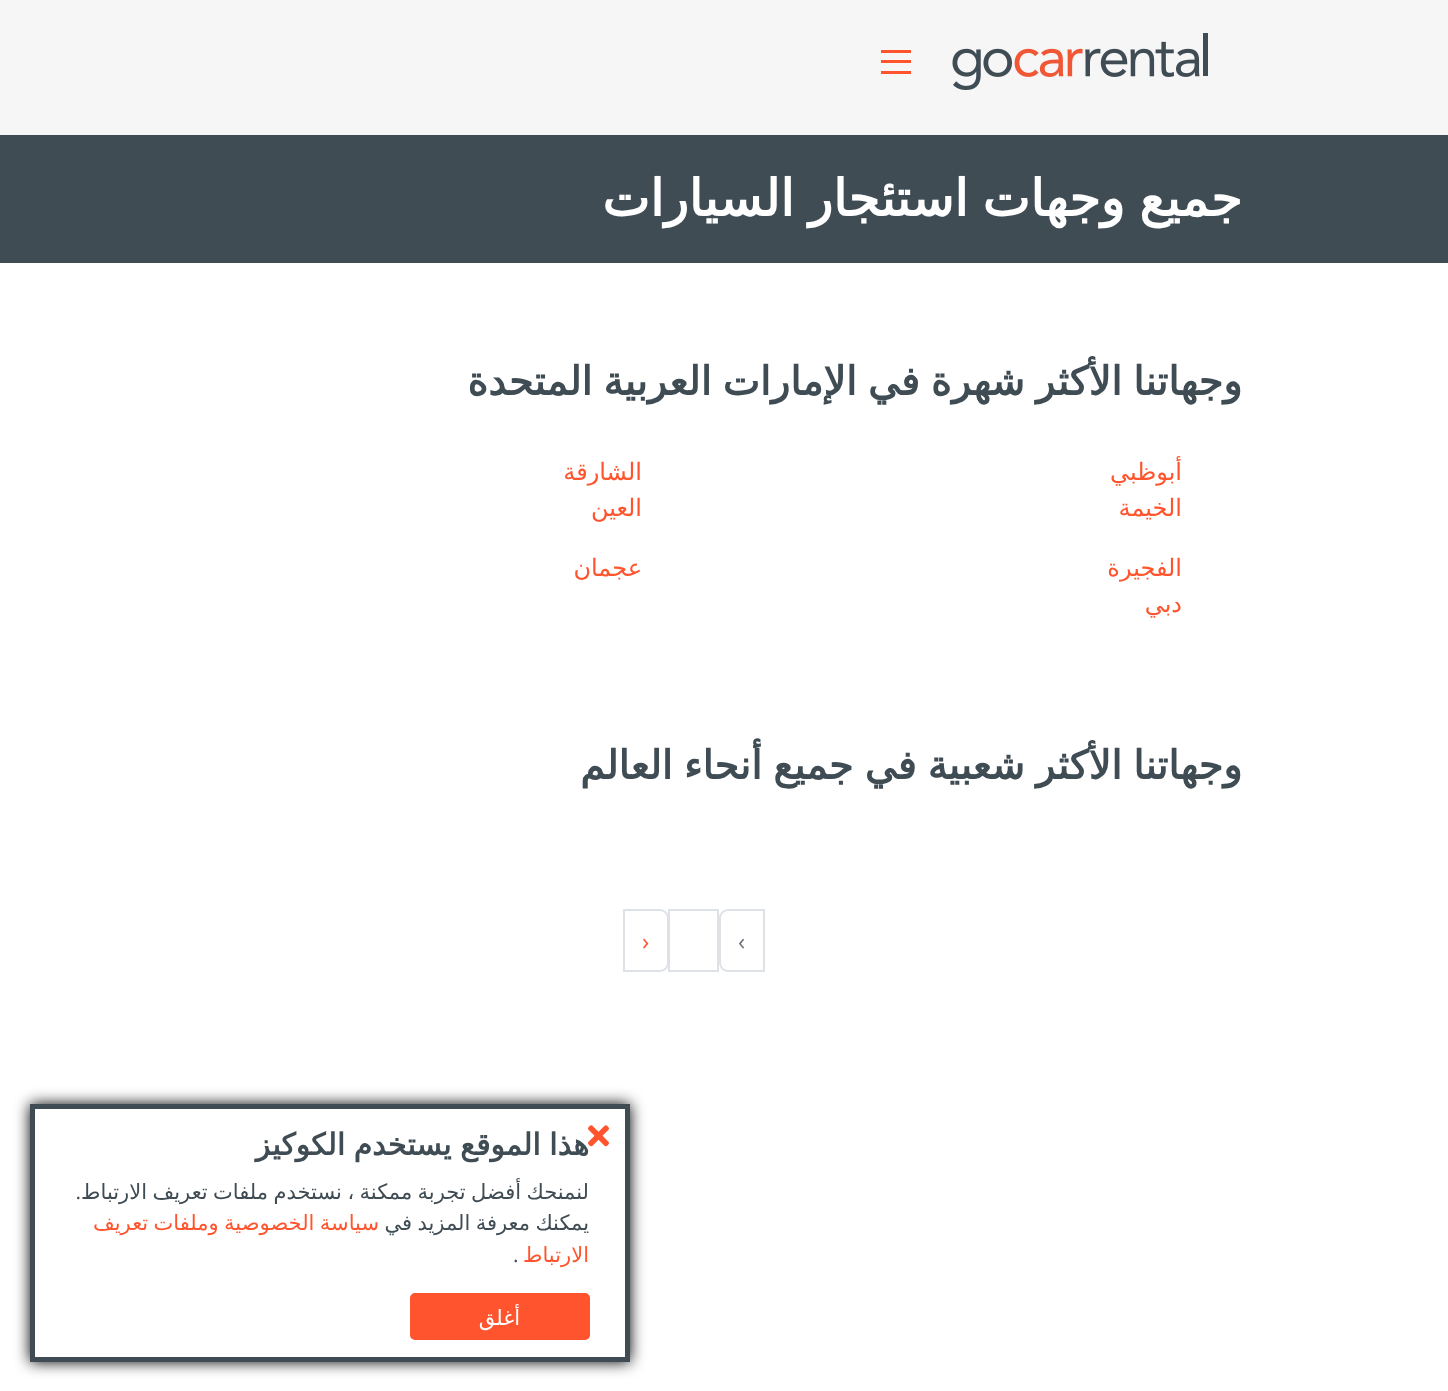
<!DOCTYPE html>
<meta charset="utf-8">
<style>body { margin: 0 } canvas { display: block }</style>
<canvas id="canvas" width="1448" height="1391"></canvas>
<img id="img1" src="img_01.png" hidden>
<img id="img2" src="img_02.png" hidden>
<script>
window.onload = function () {
	const canvas = document.getElementById("canvas");
	const ctx = canvas.getContext("2d");
	ctx.miterLimit = 4;
	ctx.fontKerning = "normal";
	function txt(s, x, y) {
		ctx.fillText(s, x, y);
	}
	function fill(x, y, w, h) {
		ctx.fillRect(x, y, w, h);
	}
	function img(id, x, y, w, h) {
		ctx.drawImage(document.getElementById(id), x, y, w, h);
	}

	ctx.fillStyle = "#FFFFFF";
	fill(0, 0, 1448, 1391);
	ctx.fillStyle = "#F6F6F6";
	fill(0, 0, 1448, 135);
	img("img1", 952, 33, 256, 57);
	ctx.fillStyle = "#FF542D";
	fill(881, 60, 30, 3);
	fill(881, 50, 30, 3);
	fill(881, 71, 30, 3);
	ctx.fillStyle = "#3F4C54";
	fill(0, 135, 1448, 128);
	ctx.beginPath();
	ctx.roundRect(720, 910, 44, 61, [8, 0, 0, 8]);
	ctx.strokeStyle = "#DEE2E6";
	ctx.lineWidth = 2;
	ctx.stroke();
	ctx.strokeRect(669, 910, 49, 61);
	ctx.fillStyle = "#FFFFFF";
	ctx.beginPath();
	ctx.roundRect(624, 910, 44, 61, [0, 8, 8, 0]);
	ctx.fill();
	ctx.stroke();
	ctx.save();
	ctx.beginPath();
	ctx.moveTo(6, 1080);
	ctx.lineTo(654, 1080);
	ctx.lineTo(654, 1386);
	ctx.lineTo(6, 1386);
	ctx.closePath();
	ctx.moveTo(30, 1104);
	ctx.lineTo(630, 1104);
	ctx.lineTo(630, 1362);
	ctx.lineTo(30, 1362);
	ctx.closePath();
	ctx.clip("evenodd");
	ctx.fillStyle = "#000000";
	ctx.filter = "blur(7.5px)";
	ctx.beginPath();
	ctx.rect(30, 1104, 600, 258);
	ctx.fill();
	ctx.filter = "none";
	ctx.restore();
	ctx.strokeStyle = "#3F4C54";
	ctx.lineWidth = 5;
	ctx.strokeRect(32.5, 1106.5, 595, 253);
	ctx.fillStyle = "#FF542D";
	ctx.beginPath();
	ctx.roundRect(411, 1294, 178, 45, 4);
	ctx.fill();
	ctx.strokeStyle = "#FF542D";
	ctx.lineWidth = 2;
	ctx.stroke();
	ctx.wordSpacing = "-2px";
	ctx.direction = "rtl";
	ctx.font = "bold 50.75px DejaVu Sans";
	ctx.fillStyle = "#FFFFFF";
	txt("جميع وجهات استئجار السيارات", 1242, 216);
	ctx.wordSpacing = "-1.5px";
	ctx.font = "bold 39.6px DejaVu Sans";
	ctx.fillStyle = "#3F4C54";
	txt("وجهاتنا الأكثر شهرة في الإمارات العربية المتحدة", 1242, 395);
	ctx.wordSpacing = "0px";
	ctx.font = "24px DejaVu Sans";
	ctx.fillStyle = "#FF542D";
	txt("أبوظبي", 1182, 480);
	txt("الخيمة", 1182, 516);
	txt("الشارقة", 642, 480);
	txt("العين", 642, 516);
	txt("الفجيرة", 1182, 576);
	txt("دبي", 1182, 612);
	txt("عجمان", 642, 576);
	ctx.wordSpacing = "-1.5px";
	ctx.font = "bold 39.6px DejaVu Sans";
	ctx.fillStyle = "#3F4C54";
	txt("وجهاتنا الأكثر شعبية في جميع أنحاء العالم", 1242, 779);
	ctx.wordSpacing = "0px";
	ctx.direction = "ltr";
	ctx.font = "24px Open Sans";
	ctx.fillStyle = "#6C757D";
	txt("‹", 738, 950);
	ctx.fillStyle = "#FF542D";
	txt("›", 642, 950);
	ctx.wordSpacing = "-1px";
	ctx.direction = "rtl";
	ctx.font = "bold 30px DejaVu Sans";
	ctx.fillStyle = "#3F4C54";
	txt("هذا الموقع يستخدم الكوكيز", 589, 1155);
	img("img2", 588, 1125, 21, 22);
	ctx.wordSpacing = "-1.25px";
	ctx.font = "21px DejaVu Sans";
	txt("لنمنحك أفضل تجربة ممكنة ، نستخدم ملفات تعريف الارتباط", 589, 1199);
	ctx.wordSpacing = "0px";
	ctx.font = "21px Open Sans";
	txt(".", 81, 1199);
	ctx.wordSpacing = "-1.25px";
	ctx.font = "21px DejaVu Sans";
	txt("يمكنك معرفة المزيد في", 589, 1230);
	ctx.fillStyle = "#FF542D";
	txt("سياسة الخصوصية وملفات تعريف", 379, 1230);
	ctx.wordSpacing = "0px";
	txt("الارتباط", 589, 1262);
	ctx.direction = "ltr";
	ctx.font = "21px Open Sans";
	ctx.fillStyle = "#3F4C54";
	txt(".", 513, 1262);
	ctx.direction = "rtl";
	ctx.font = "21px DejaVu Sans";
	ctx.fillStyle = "#FFFFFF";
	txt("أغلق", 520, 1325);
};
</script>
